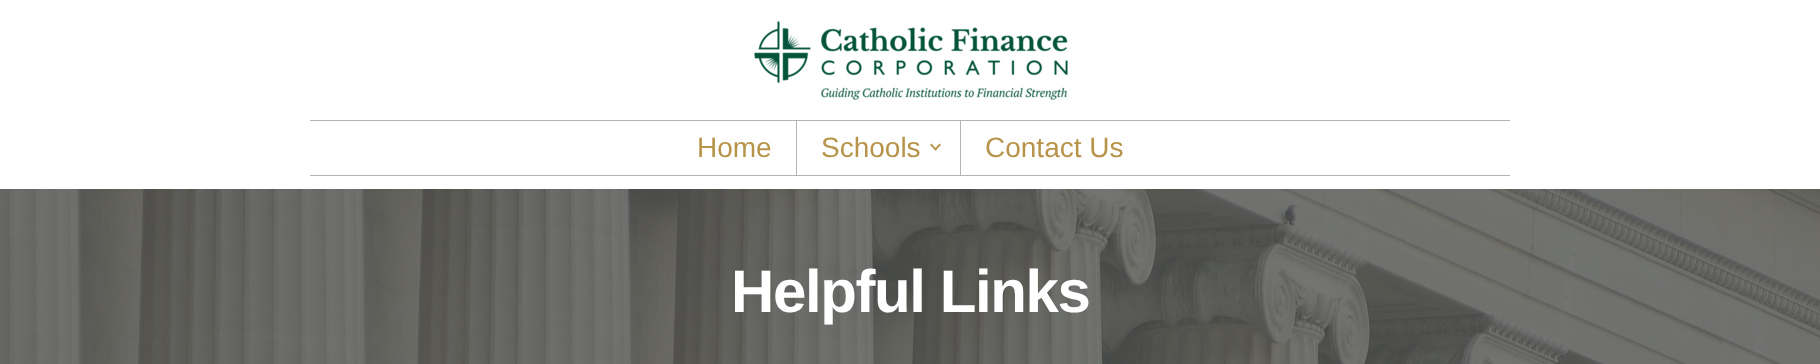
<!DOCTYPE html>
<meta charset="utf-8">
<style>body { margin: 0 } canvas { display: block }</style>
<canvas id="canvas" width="1820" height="364"></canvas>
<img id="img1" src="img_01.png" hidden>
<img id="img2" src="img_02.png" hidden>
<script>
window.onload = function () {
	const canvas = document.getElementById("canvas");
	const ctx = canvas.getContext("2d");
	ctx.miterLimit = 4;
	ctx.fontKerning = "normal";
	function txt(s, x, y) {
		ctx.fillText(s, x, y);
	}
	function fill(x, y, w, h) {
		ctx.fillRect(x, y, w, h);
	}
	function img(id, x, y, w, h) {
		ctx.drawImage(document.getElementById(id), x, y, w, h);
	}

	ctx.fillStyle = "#FFFFFF";
	fill(0, 0, 1820, 364);
	img("img1", 754, 21, 314, 79);
	ctx.fillStyle = "#B4B4B4";
	fill(310, 120, 1200, 1);
	fill(310, 175, 1200, 1);
	fill(796, 121, 1, 54);
	ctx.fillStyle = "#B7944A";
	ctx.beginPath();
	ctx.moveTo(939.5, 143.5);
	ctx.lineTo(941, 145);
	ctx.lineTo(935.5, 150.5);
	ctx.lineTo(934, 149.5);
	ctx.closePath();
	ctx.fill();
	ctx.beginPath();
	ctx.moveTo(931.5, 143.5);
	ctx.lineTo(937, 149.5);
	ctx.lineTo(935.5, 150.5);
	ctx.lineTo(930, 145);
	ctx.closePath();
	ctx.fill();
	ctx.fillStyle = "#B4B4B4";
	fill(960, 121, 1, 54);
	img("img2", 0, 189, 1820, 175);
	ctx.font = "28px Liberation Sans";
	ctx.fillStyle = "#B7944A";
	txt("Home", 697, 157);
	txt("Schools", 821, 157);
	txt("Contact Us", 985, 157);
	ctx.letterSpacing = "-1.4px";
	ctx.font = "bold 60px Liberation Sans";
	ctx.fillStyle = "#FFFFFF";
	txt("Helpful Links", 731, 312);
};
</script>
